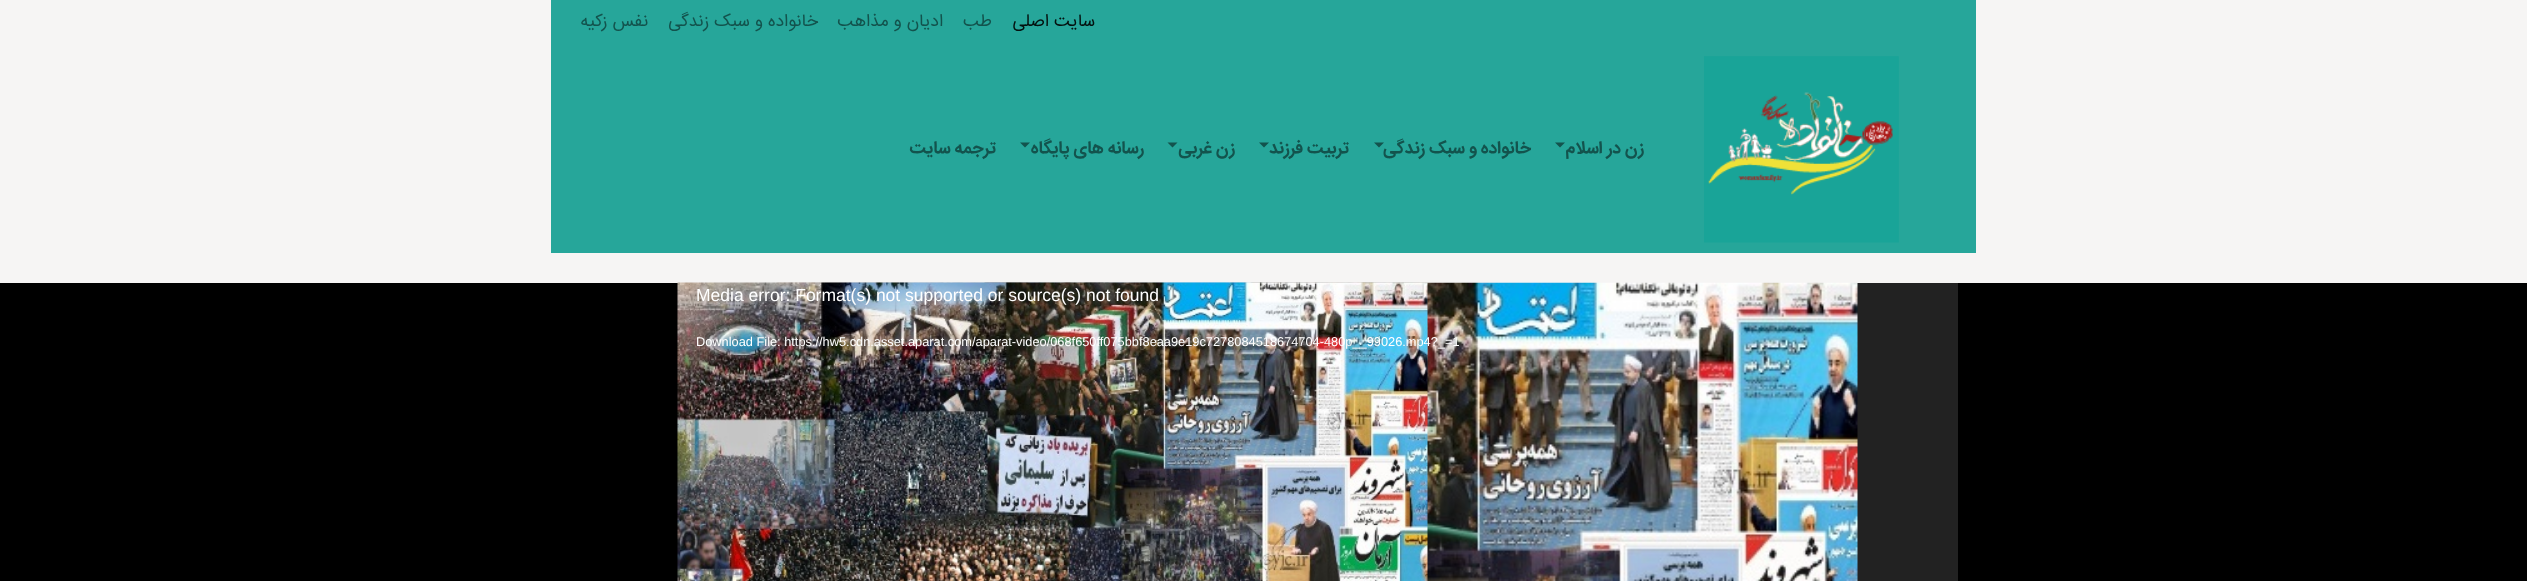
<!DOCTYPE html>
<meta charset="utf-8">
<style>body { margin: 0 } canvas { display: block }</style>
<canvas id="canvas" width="2527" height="581"></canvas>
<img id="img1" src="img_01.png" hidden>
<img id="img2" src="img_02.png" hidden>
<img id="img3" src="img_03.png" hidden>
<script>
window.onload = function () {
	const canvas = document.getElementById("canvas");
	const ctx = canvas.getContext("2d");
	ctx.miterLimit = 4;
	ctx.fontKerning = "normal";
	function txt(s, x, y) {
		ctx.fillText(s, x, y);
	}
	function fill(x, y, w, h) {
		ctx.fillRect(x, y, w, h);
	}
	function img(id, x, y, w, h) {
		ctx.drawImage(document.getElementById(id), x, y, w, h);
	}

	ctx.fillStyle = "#F6F5F4";
	fill(0, 0, 2527, 581);
	ctx.fillStyle = "#26A69A";
	fill(551, 0, 1425, 253);
	ctx.fillStyle = "#13534D";
	ctx.beginPath();
	ctx.moveTo(1020, 142.5);
	ctx.lineTo(1030, 142.5);
	ctx.lineTo(1025, 147.5);
	ctx.closePath();
	ctx.fill();
	ctx.beginPath();
	ctx.moveTo(1167.5, 142.5);
	ctx.lineTo(1177.5, 142.5);
	ctx.lineTo(1172.5, 147.5);
	ctx.closePath();
	ctx.fill();
	ctx.beginPath();
	ctx.moveTo(1259, 142.5);
	ctx.lineTo(1269, 142.5);
	ctx.lineTo(1264, 147.5);
	ctx.closePath();
	ctx.fill();
	ctx.beginPath();
	ctx.moveTo(1374, 142.5);
	ctx.lineTo(1384, 142.5);
	ctx.lineTo(1379, 147.5);
	ctx.closePath();
	ctx.fill();
	ctx.beginPath();
	ctx.moveTo(1555, 142.5);
	ctx.lineTo(1565, 142.5);
	ctx.lineTo(1560, 147.5);
	ctx.closePath();
	ctx.fill();
	img("img1", 1704, 56, 195, 187);
	ctx.fillStyle = "#000000";
	fill(0, 283, 2527, 298);
	ctx.fillStyle = "#222222";
	fill(1857, 283, 101, 298);
	img("img2", 777, 282, 1081, 299);
	img("img3", 677, 282, 751, 299);
	ctx.direction = "rtl";
	ctx.font = "17.5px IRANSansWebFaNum";
	ctx.fillStyle = "#13534D";
	txt("نفس زکیه", 648, 26);
	txt("خانواده و سبک زندگی", 818, 26);
	txt("ادیان و مذاهب", 943, 26);
	txt("طب", 992, 26);
	ctx.fillStyle = "#04110F";
	txt("سایت اصلی", 1095, 26);
	ctx.font = "bold 17.5px IRANSansWebFaNum";
	ctx.fillStyle = "#13534D";
	txt("ترجمه سایت", 996, 153);
	txt("رسانه های پایگاه", 1144, 153);
	txt("زن غربی", 1235, 153);
	txt("تربیت فرزند", 1349, 153);
	txt("خانواده و سبک زندگی", 1531, 153);
	txt("زن در اسلام", 1644, 153);
	ctx.direction = "ltr";
	ctx.font = "17.5px Liberation Sans";
	ctx.fillStyle = "#FFFFFF";
	txt("Media error: Format(s) not supported or source(s) not found", 696, 301);
	ctx.font = "12.8px Liberation Sans";
	txt("Download File: https://hw5.cdn.asset.aparat.com/aparat-video/068f650ff075bbf8eaa9e19c7278084518674704-480p__99026.mp4?_=1", 696, 346);
};
</script>
